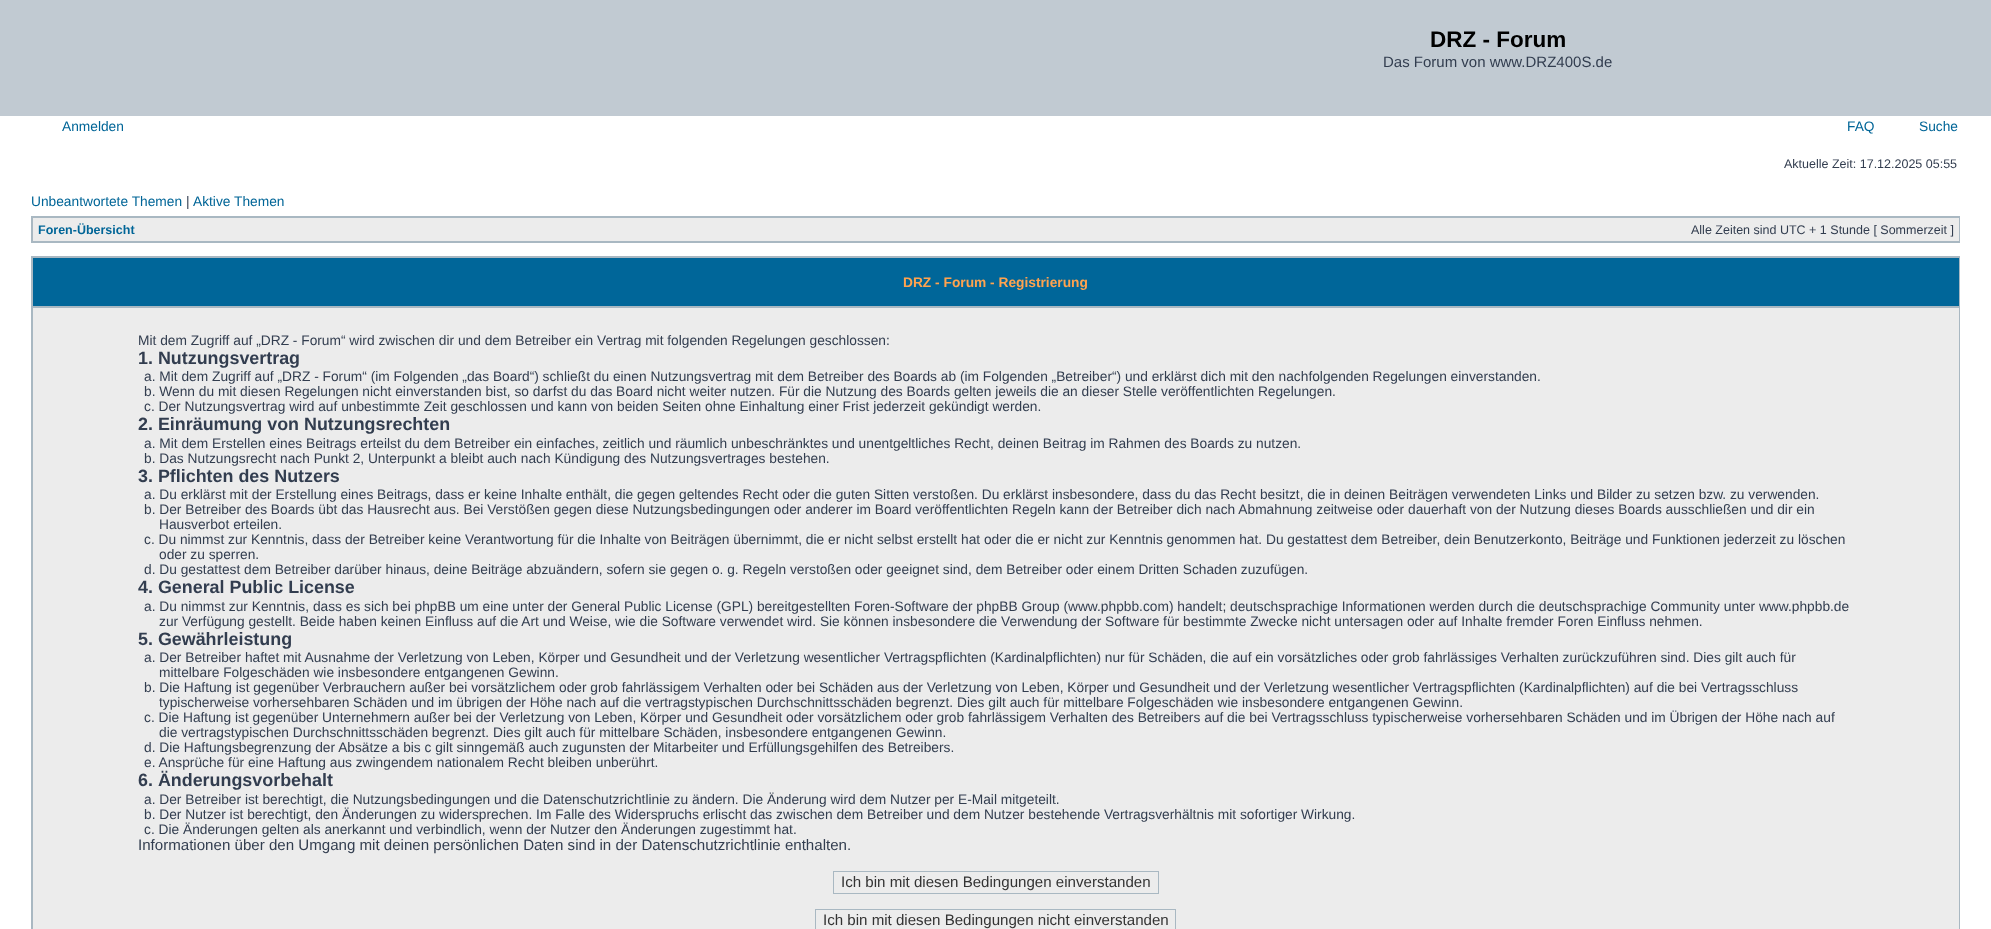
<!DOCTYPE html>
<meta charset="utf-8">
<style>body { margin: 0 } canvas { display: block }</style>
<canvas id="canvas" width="1991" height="929"></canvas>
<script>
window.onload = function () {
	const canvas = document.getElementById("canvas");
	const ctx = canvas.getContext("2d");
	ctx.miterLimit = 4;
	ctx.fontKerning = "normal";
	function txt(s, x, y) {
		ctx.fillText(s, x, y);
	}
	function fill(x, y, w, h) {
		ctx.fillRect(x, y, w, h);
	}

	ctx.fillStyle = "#FFFFFF";
	fill(0, 0, 1991, 929);
	ctx.fillStyle = "#C1CAD2";
	fill(0, 0, 1991, 116);
	ctx.fillStyle = "#A9B8C2";
	fill(31, 216, 1929, 27);
	ctx.fillStyle = "#ECECEC";
	fill(33, 218, 1926, 23);
	ctx.fillStyle = "#A9B8C2";
	fill(31, 256, 1929, 673);
	ctx.fillStyle = "#006699";
	fill(33, 258, 1926, 48);
	ctx.fillStyle = "#ECECEC";
	fill(33, 308, 1926, 621);
	ctx.strokeStyle = "#A9B8C2";
	ctx.strokeRect(833.5, 871.5, 325, 22);
	ctx.strokeRect(815.5, 909.5, 360, 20);
	ctx.font = "bold 22.5px Liberation Sans";
	ctx.fillStyle = "#000000";
	txt("DRZ - Forum", 1430, 47);
	ctx.font = "15px Liberation Sans";
	ctx.fillStyle = "#323D4F";
	txt("Das Forum von www.DRZ400S.de", 1383, 67);
	ctx.font = "13.75px Liberation Sans";
	ctx.fillStyle = "#006597";
	txt("Anmelden", 62, 131);
	txt("FAQ", 1847, 131);
	txt("Suche", 1919, 131);
	ctx.font = "12.5px Liberation Sans";
	ctx.fillStyle = "#323D4F";
	txt("Aktuelle Zeit: 17.12.2025 05:55", 1784, 168);
	ctx.font = "13.75px Liberation Sans";
	ctx.fillStyle = "#006597";
	txt("Unbeantwortete Themen", 31, 206);
	ctx.fillStyle = "#323D4F";
	txt("|", 186, 206);
	ctx.fillStyle = "#006597";
	txt("Aktive Themen", 193, 206);
	ctx.font = "bold 12.5px Liberation Sans";
	txt("Foren-Übersicht", 38, 234);
	ctx.font = "12.5px Liberation Sans";
	ctx.fillStyle = "#323D4F";
	txt("Alle Zeiten sind UTC + 1 Stunde [ Sommerzeit ]", 1691, 234);
	ctx.font = "bold 13.75px Liberation Sans";
	ctx.fillStyle = "#FFA34F";
	txt("DRZ - Forum - Registrierung", 903, 287);
	ctx.font = "13.75px Liberation Sans";
	ctx.fillStyle = "#323D4F";
	txt("Mit dem Zugriff auf „DRZ - Forum“ wird zwischen dir und dem Betreiber ein Vertrag mit folgenden Regelungen geschlossen:", 138, 345);
	ctx.font = "bold 17.9px Liberation Sans";
	txt("1. Nutzungsvertrag", 138, 364);
	ctx.font = "13.75px Liberation Sans";
	txt("a. Mit dem Zugriff auf „DRZ - Forum“ (im Folgenden „das Board“) schließt du einen Nutzungsvertrag mit dem Betreiber des Boards ab (im Folgenden „Betreiber“) und erklärst dich mit den nachfolgenden Regelungen einverstanden.", 144, 381);
	txt("b. Wenn du mit diesen Regelungen nicht einverstanden bist, so darfst du das Board nicht weiter nutzen. Für die Nutzung des Boards gelten jeweils die an dieser Stelle veröffentlichten Regelungen.", 144, 396);
	txt("c. Der Nutzungsvertrag wird auf unbestimmte Zeit geschlossen und kann von beiden Seiten ohne Einhaltung einer Frist jederzeit gekündigt werden.", 144, 411);
	ctx.font = "bold 17.9px Liberation Sans";
	txt("2. Einräumung von Nutzungsrechten", 138, 430);
	ctx.font = "13.75px Liberation Sans";
	txt("a. Mit dem Erstellen eines Beitrags erteilst du dem Betreiber ein einfaches, zeitlich und räumlich unbeschränktes und unentgeltliches Recht, deinen Beitrag im Rahmen des Boards zu nutzen.", 144, 448);
	txt("b. Das Nutzungsrecht nach Punkt 2, Unterpunkt a bleibt auch nach Kündigung des Nutzungsvertrages bestehen.", 144, 463);
	ctx.font = "bold 17.9px Liberation Sans";
	txt("3. Pflichten des Nutzers", 138, 482);
	ctx.font = "13.75px Liberation Sans";
	txt("a. Du erklärst mit der Erstellung eines Beitrags, dass er keine Inhalte enthält, die gegen geltendes Recht oder die guten Sitten verstoßen. Du erklärst insbesondere, dass du das Recht besitzt, die in deinen Beiträgen verwendeten Links und Bilder zu setzen bzw. zu verwenden.", 144, 499);
	txt("b. Der Betreiber des Boards übt das Hausrecht aus. Bei Verstößen gegen diese Nutzungsbedingungen oder anderer im Board veröffentlichten Regeln kann der Betreiber dich nach Abmahnung zeitweise oder dauerhaft von der Nutzung dieses Boards ausschließen und dir ein", 144, 514);
	txt("Hausverbot erteilen.", 159, 529);
	txt("c. Du nimmst zur Kenntnis, dass der Betreiber keine Verantwortung für die Inhalte von Beiträgen übernimmt, die er nicht selbst erstellt hat oder die er nicht zur Kenntnis genommen hat. Du gestattest dem Betreiber, dein Benutzerkonto, Beiträge und Funktionen jederzeit zu löschen", 144, 544);
	txt("oder zu sperren.", 159, 559);
	txt("d. Du gestattest dem Betreiber darüber hinaus, deine Beiträge abzuändern, sofern sie gegen o. g. Regeln verstoßen oder geeignet sind, dem Betreiber oder einem Dritten Schaden zuzufügen.", 144, 574);
	ctx.font = "bold 17.9px Liberation Sans";
	txt("4. General Public License", 138, 593);
	ctx.font = "13.75px Liberation Sans";
	txt("a. Du nimmst zur Kenntnis, dass es sich bei phpBB um eine unter der General Public License (GPL) bereitgestellten Foren-Software der phpBB Group (www.phpbb.com) handelt; deutschsprachige Informationen werden durch die deutschsprachige Community unter www.phpbb.de", 144, 611);
	txt("zur Verfügung gestellt. Beide haben keinen Einfluss auf die Art und Weise, wie die Software verwendet wird. Sie können insbesondere die Verwendung der Software für bestimmte Zwecke nicht untersagen oder auf Inhalte fremder Foren Einfluss nehmen.", 159, 626);
	ctx.font = "bold 17.9px Liberation Sans";
	txt("5. Gewährleistung", 138, 645);
	ctx.font = "13.75px Liberation Sans";
	txt("a. Der Betreiber haftet mit Ausnahme der Verletzung von Leben, Körper und Gesundheit und der Verletzung wesentlicher Vertragspflichten (Kardinalpflichten) nur für Schäden, die auf ein vorsätzliches oder grob fahrlässiges Verhalten zurückzuführen sind. Dies gilt auch für", 144, 662);
	txt("mittelbare Folgeschäden wie insbesondere entgangenen Gewinn.", 159, 677);
	txt("b. Die Haftung ist gegenüber Verbrauchern außer bei vorsätzlichem oder grob fahrlässigem Verhalten oder bei Schäden aus der Verletzung von Leben, Körper und Gesundheit und der Verletzung wesentlicher Vertragspflichten (Kardinalpflichten) auf die bei Vertragsschluss", 144, 692);
	txt("typischerweise vorhersehbaren Schäden und im übrigen der Höhe nach auf die vertragstypischen Durchschnittsschäden begrenzt. Dies gilt auch für mittelbare Folgeschäden wie insbesondere entgangenen Gewinn.", 159, 707);
	txt("c. Die Haftung ist gegenüber Unternehmern außer bei der Verletzung von Leben, Körper und Gesundheit oder vorsätzlichem oder grob fahrlässigem Verhalten des Betreibers auf die bei Vertragsschluss typischerweise vorhersehbaren Schäden und im Übrigen der Höhe nach auf", 144, 722);
	txt("die vertragstypischen Durchschnittsschäden begrenzt. Dies gilt auch für mittelbare Schäden, insbesondere entgangenen Gewinn.", 159, 737);
	txt("d. Die Haftungsbegrenzung der Absätze a bis c gilt sinngemäß auch zugunsten der Mitarbeiter und Erfüllungsgehilfen des Betreibers.", 144, 752);
	txt("e. Ansprüche für eine Haftung aus zwingendem nationalem Recht bleiben unberührt.", 144, 767);
	ctx.font = "bold 17.9px Liberation Sans";
	txt("6. Änderungsvorbehalt", 138, 786);
	ctx.font = "13.75px Liberation Sans";
	txt("a. Der Betreiber ist berechtigt, die Nutzungsbedingungen und die Datenschutzrichtlinie zu ändern. Die Änderung wird dem Nutzer per E-Mail mitgeteilt.", 144, 804);
	txt("b. Der Nutzer ist berechtigt, den Änderungen zu widersprechen. Im Falle des Widerspruchs erlischt das zwischen dem Betreiber und dem Nutzer bestehende Vertragsverhältnis mit sofortiger Wirkung.", 144, 819);
	txt("c. Die Änderungen gelten als anerkannt und verbindlich, wenn der Nutzer den Änderungen zugestimmt hat.", 144, 834);
	ctx.font = "15.1px Liberation Sans";
	txt("Informationen über den Umgang mit deinen persönlichen Daten sind in der Datenschutzrichtlinie enthalten.", 138, 850);
	ctx.fillStyle = "#333333";
	txt("Ich bin mit diesen Bedingungen einverstanden", 841, 887);
	txt("Ich bin mit diesen Bedingungen nicht einverstanden", 823, 925);
};
</script>
